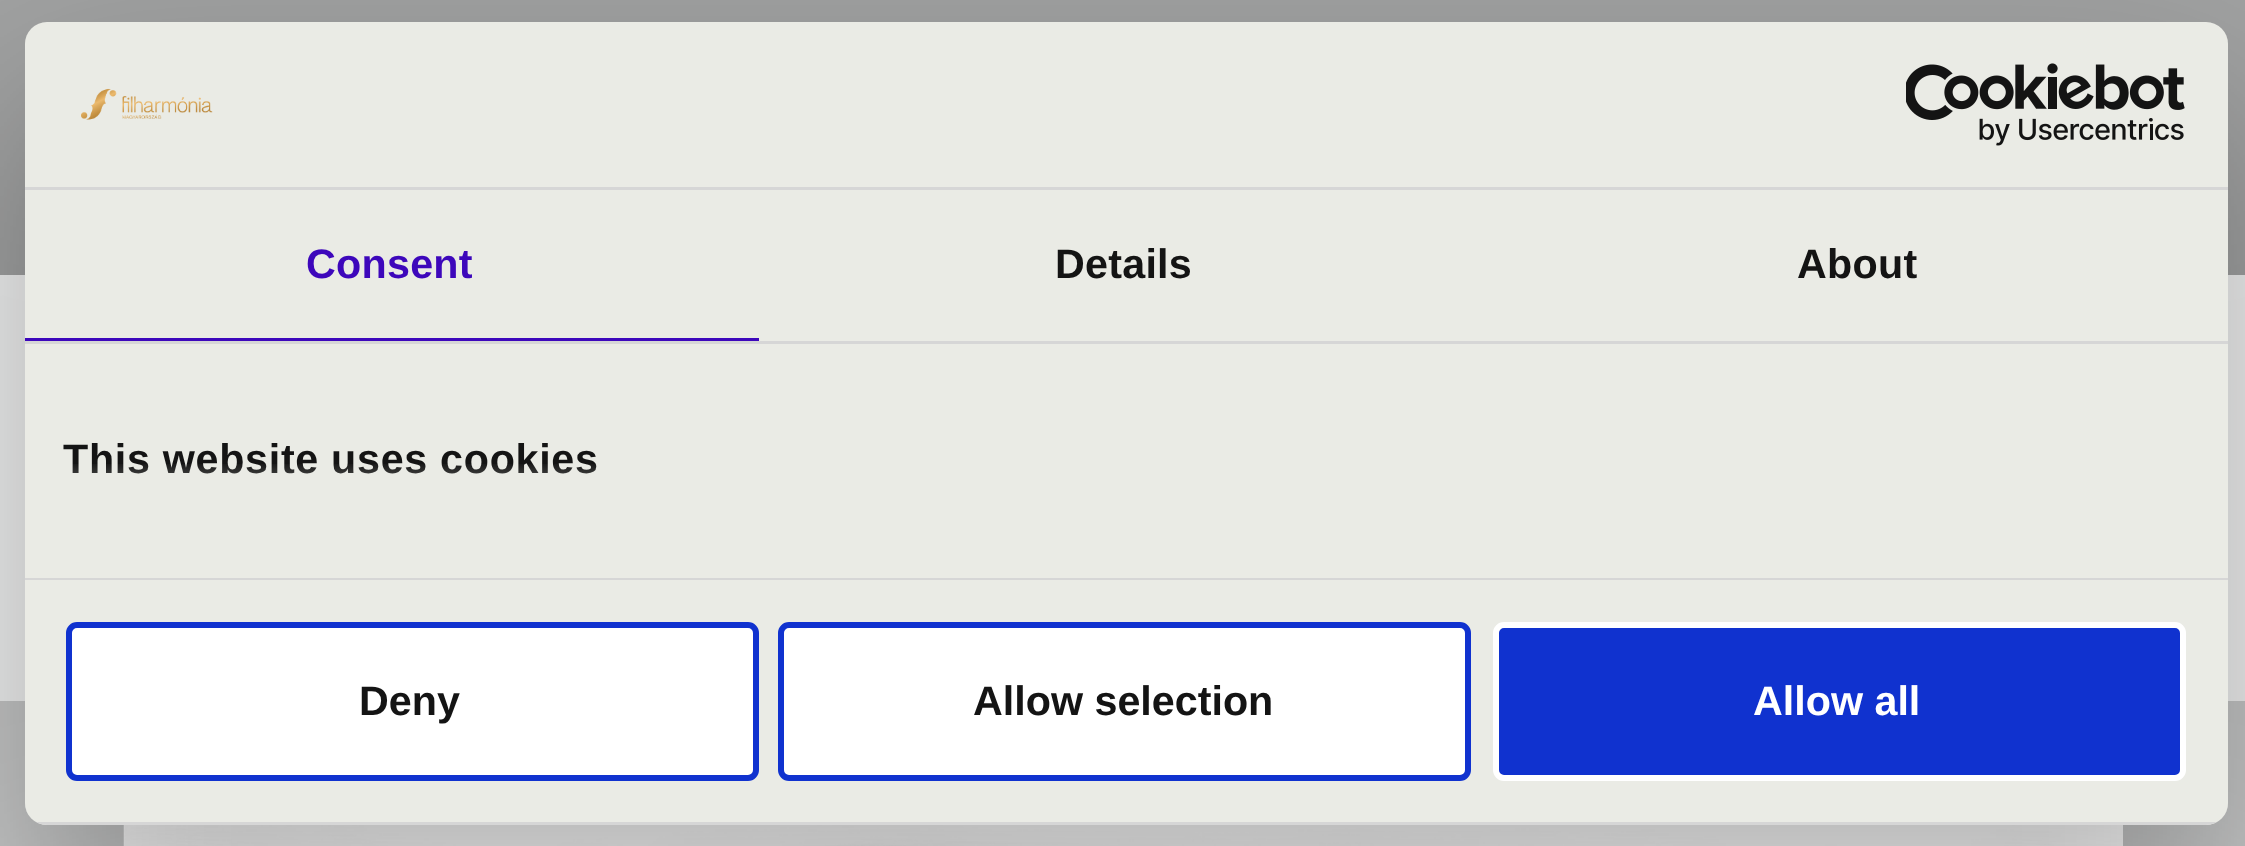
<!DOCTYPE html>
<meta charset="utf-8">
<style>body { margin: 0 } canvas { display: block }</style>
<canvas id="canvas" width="2245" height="846"></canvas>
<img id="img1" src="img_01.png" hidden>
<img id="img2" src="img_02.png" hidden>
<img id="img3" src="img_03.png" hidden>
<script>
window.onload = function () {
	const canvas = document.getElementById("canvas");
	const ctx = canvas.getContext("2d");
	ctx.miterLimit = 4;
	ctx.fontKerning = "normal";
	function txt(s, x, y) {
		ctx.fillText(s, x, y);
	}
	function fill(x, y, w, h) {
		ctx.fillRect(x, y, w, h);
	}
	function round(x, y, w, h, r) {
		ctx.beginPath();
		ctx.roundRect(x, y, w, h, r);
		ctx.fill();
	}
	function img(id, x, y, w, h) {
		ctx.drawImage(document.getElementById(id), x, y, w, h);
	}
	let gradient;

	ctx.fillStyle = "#F1F2F2";
	fill(0, 0, 2245, 846);
	ctx.fillStyle = "#A1A2A2";
	fill(0, 0, 2245, 275);
	ctx.fillStyle = "#C6C7C7";
	fill(0, 701, 2245, 145);
	img("img1", 123, 825, 2000, 21);
	ctx.save();
	ctx.beginPath();
	ctx.moveTo(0, 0);
	ctx.lineTo(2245, 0);
	ctx.lineTo(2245, 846);
	ctx.lineTo(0, 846);
	ctx.closePath();
	ctx.moveTo(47, 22);
	ctx.lineTo(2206, 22);
	ctx.bezierCurveTo(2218, 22, 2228, 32, 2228, 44);
	ctx.lineTo(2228, 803);
	ctx.bezierCurveTo(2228, 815, 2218, 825, 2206, 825);
	ctx.lineTo(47, 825);
	ctx.bezierCurveTo(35, 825, 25, 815, 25, 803);
	ctx.lineTo(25, 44);
	ctx.bezierCurveTo(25, 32, 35, 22, 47, 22);
	ctx.closePath();
	ctx.clip("evenodd");
	ctx.fillStyle = "rgba(0, 0, 0, 0.3)";
	ctx.filter = "blur(93.5px)";
	ctx.beginPath();
	ctx.roundRect(25, 110, 2203, 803, 22);
	ctx.fill();
	ctx.filter = "none";
	ctx.restore();
	ctx.fillStyle = "#EAEBE5";
	round(25, 22, 2203, 803, 22);
	ctx.fillStyle = "#D6D6D6";
	fill(25, 187, 2203, 3);
	img("img2", 81, 88, 132, 32);
	img("img3", 1906, 63, 279, 83);
	fill(25, 341, 2203, 3);
	ctx.fillStyle = "#3D07BB";
	fill(25, 338, 734, 3);
	ctx.fillStyle = "#D6D6D6";
	fill(25, 578, 2203, 2);
	ctx.save();
	ctx.beginPath();
	ctx.roundRect(25, 22, 2203, 803, 22);
	ctx.clip();
	fill(36, 822, 2181, 3);
	ctx.restore();
	ctx.fillStyle = "#FFFFFF";
	ctx.beginPath();
	ctx.roundRect(69, 625, 687, 153, 8);
	ctx.fill();
	ctx.strokeStyle = "#1032CF";
	ctx.lineWidth = 6;
	ctx.stroke();
	ctx.beginPath();
	ctx.roundRect(781, 625, 687, 153, 8);
	ctx.fill();
	ctx.stroke();
	ctx.fillStyle = "#1032CF";
	ctx.beginPath();
	ctx.roundRect(1496, 625, 687, 153, 8);
	ctx.fill();
	ctx.strokeStyle = "#FFFFFF";
	ctx.stroke();
	ctx.letterSpacing = "0.25px";
	ctx.font = "bold 41.25px Liberation Sans";
	ctx.fillStyle = "#3D07BB";
	txt("Consent", 306, 278);
	ctx.fillStyle = "#141414";
	txt("Details", 1055, 278);
	txt("About", 1797, 278);
	ctx.letterSpacing = "0.7px";
	txt("This website uses cookies", 63, 473);
	gradient = ctx.createLinearGradient(1107, 578, 1107, 462);
	gradient.addColorStop(0, "#EAEBE5");
	gradient.addColorStop(0.5, "rgba(234, 235, 229, 0.8)");
	gradient.addColorStop(1, "rgba(234, 235, 229, 0)");
	ctx.fillStyle = gradient;
	fill(72, 464, 524, 10);
	ctx.letterSpacing = "0px";
	ctx.fillStyle = "#141414";
	txt("Deny", 359, 715);
	txt("Allow selection", 973, 715);
	ctx.fillStyle = "#FFFFFF";
	txt("Allow all", 1753, 715);
};
</script>
